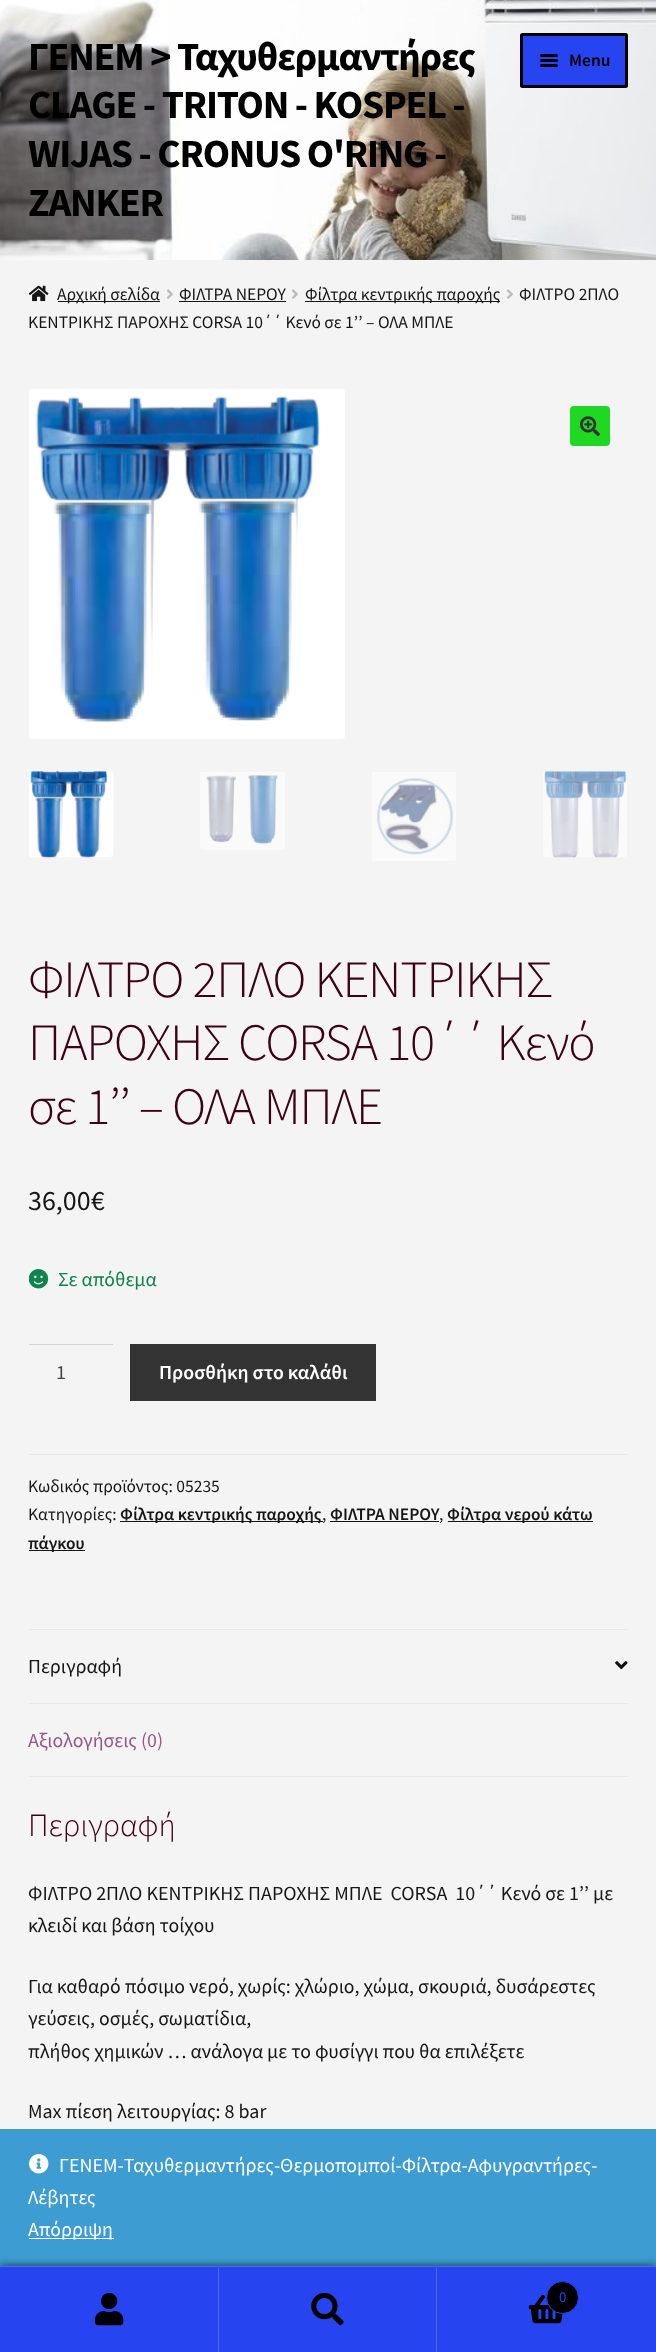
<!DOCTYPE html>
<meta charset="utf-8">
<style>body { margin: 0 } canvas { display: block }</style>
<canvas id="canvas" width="656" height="2352"></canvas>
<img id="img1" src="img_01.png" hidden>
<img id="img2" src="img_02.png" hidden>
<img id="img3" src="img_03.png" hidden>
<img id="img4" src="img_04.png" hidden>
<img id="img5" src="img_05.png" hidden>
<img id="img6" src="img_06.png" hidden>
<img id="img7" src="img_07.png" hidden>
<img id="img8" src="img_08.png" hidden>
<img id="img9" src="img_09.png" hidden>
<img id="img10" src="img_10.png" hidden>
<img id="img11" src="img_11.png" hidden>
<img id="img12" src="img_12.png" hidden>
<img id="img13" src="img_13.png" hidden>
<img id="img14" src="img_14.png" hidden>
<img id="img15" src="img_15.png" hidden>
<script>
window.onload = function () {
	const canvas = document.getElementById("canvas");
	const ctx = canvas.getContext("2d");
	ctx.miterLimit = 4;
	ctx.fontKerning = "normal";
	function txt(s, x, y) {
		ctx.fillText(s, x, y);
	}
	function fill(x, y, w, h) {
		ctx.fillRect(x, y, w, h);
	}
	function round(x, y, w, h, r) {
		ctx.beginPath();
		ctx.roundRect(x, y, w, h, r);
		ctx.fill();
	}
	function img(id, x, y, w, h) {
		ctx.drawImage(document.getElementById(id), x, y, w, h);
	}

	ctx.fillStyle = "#F4F4F4";
	fill(0, 0, 656, 2352);
	img("img1", 0, 0, 656, 260);
	ctx.fillStyle = "#2644EF";
	ctx.beginPath();
	ctx.roundRect(521.5, 34.5, 105, 52, 1);
	ctx.fill();
	ctx.strokeStyle = "#000000";
	ctx.lineWidth = 3;
	ctx.stroke();
	ctx.fillStyle = "#000000";
	round(540, 54, 18, 3, 1.5);
	round(540, 59, 18, 3, 1.5);
	round(540, 64, 18, 3, 1.5);
	img("img2", 28, 285, 21, 17);
	ctx.fillStyle = "#161616";
	fill(58, 301, 102, 1);
	img("img3", 167, 289, 6, 10);
	fill(179, 301, 107, 1);
	img("img3", 292, 289, 6, 10);
	fill(305, 301, 195, 1);
	img("img3", 507, 289, 6, 10);
	img("img4", 29, 389, 316, 350);
	ctx.fillStyle = "#1ED821";
	round(570, 406, 40, 40, 4);
	img("img5", 580, 416, 20, 21);
	img("img6", 29, 771, 85, 87);
	img("img7", 200, 772, 85, 78);
	img("img8", 372, 772, 84, 89);
	img("img9", 543, 771, 84, 87);
	img("img10", 29, 1269, 20, 20);
	ctx.fillStyle = "#D4D4D4";
	fill(29, 1344, 84, 1);
	ctx.fillStyle = "#333333";
	fill(130, 1344, 246, 57);
	ctx.fillStyle = "#E8E8E8";
	fill(29, 1454, 599, 1);
	ctx.fillStyle = "#161616";
	fill(120, 1521, 203, 1);
	fill(330, 1521, 109, 1);
	fill(448, 1521, 145, 1);
	fill(29, 1550, 56, 1);
	ctx.fillStyle = "#E8E8E8";
	fill(29, 1629, 599, 1);
	fill(29, 1703, 599, 1);
	img("img11", 615, 1661, 13, 9);
	fill(29, 1776, 599, 1);
	ctx.fillStyle = "#3D9CD2";
	fill(0, 2129, 656, 137);
	ctx.fillStyle = "rgba(0, 0, 0, 0.7)";
	ctx.filter = "blur(4px)";
	ctx.beginPath();
	ctx.rect(0, 2266, 656, 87);
	ctx.fill();
	ctx.filter = "none";
	ctx.fillStyle = "#2644EF";
	fill(0, 2267, 656, 1);
	ctx.fillStyle = "#5169F2";
	fill(0, 2266, 656, 1);
	ctx.fillStyle = "#2644EF";
	fill(0, 2268, 218, 84);
	ctx.fillStyle = "#5169F2";
	fill(218, 2268, 1, 84);
	img("img12", 95, 2292, 29, 34);
	ctx.fillStyle = "#2644EF";
	fill(219, 2268, 437, 84);
	ctx.fillStyle = "#5169F2";
	fill(436, 2268, 1, 84);
	img("img13", 311, 2292, 33, 34);
	img("img14", 528, 2295, 35, 29);
	ctx.fillStyle = "#000000";
	ctx.beginPath();
	ctx.arc(562.5, 2297.5, 16, 0, Math.PI * 2);
	ctx.fill();
	ctx.strokeStyle = "#2644EF";
	ctx.lineWidth = 1;
	ctx.stroke();
	img("img15", 29, 2154, 20, 20);
	ctx.fillStyle = "#FFFFFF";
	fill(29, 2238, 85, 1);
	ctx.letterSpacing = "-1.25px";
	ctx.font = "bold 40px Source Sans Pro";
	ctx.fillStyle = "#000000";
	txt("ΓΕΝΕΜ > Ταχυθερμαντήρες", 28, 70);
	txt("CLAGE - TRITON - KOSPEL -", 28, 118);
	txt("WIJAS - CRONUS O'RING -", 28, 167);
	txt("ZANKER", 28, 216);
	ctx.letterSpacing = "0px";
	ctx.font = "600 17.5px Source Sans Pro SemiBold";
	txt("Menu", 569, 66);
	ctx.font = "17.5px Source Sans Pro";
	ctx.fillStyle = "#161616";
	txt("Αρχική σελίδα", 57, 300);
	txt("ΦΙΛΤΡΑ ΝΕΡΟΥ", 179, 300);
	txt("Φίλτρα κεντρικής παροχής", 305, 300);
	txt("ΦΙΛΤΡΟ 2ΠΛΟ", 519, 300);
	txt("ΚΕΝΤΡΙΚΗΣ ΠΑΡΟΧΗΣ CORSA 10΄΄ Κενό σε 1’’ – ΟΛΑ ΜΠΛΕ", 28, 328);
	ctx.letterSpacing = "-1.25px";
	ctx.font = "300 52.4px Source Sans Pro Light";
	ctx.fillStyle = "#3D0117";
	txt("ΦΙΛΤΡΟ 2ΠΛΟ ΚΕΝΤΡΙΚΗΣ", 28, 997);
	txt("ΠΑΡΟΧΗΣ CORSA 10΄΄ Κενό", 28, 1060);
	txt("σε 1’’ – ΟΛΑ ΜΠΛΕ", 28, 1124);
	ctx.letterSpacing = "0px";
	ctx.font = "28px Source Sans Pro";
	ctx.fillStyle = "#161616";
	txt("36,00€", 28, 1210);
	ctx.font = "20px Source Sans Pro";
	ctx.fillStyle = "#0F834D";
	txt("Σε απόθεμα", 58, 1286);
	ctx.fillStyle = "#43454B";
	txt("1", 56, 1379);
	ctx.font = "600 20px Source Sans Pro SemiBold";
	ctx.fillStyle = "#FFFFFF";
	txt("Προσθήκη στο καλάθι", 159, 1379);
	ctx.font = "17.5px Source Sans Pro";
	ctx.fillStyle = "#161616";
	txt("Κωδικός προϊόντος: 05235", 28, 1492);
	txt("Κατηγορίες:", 28, 1520);
	ctx.font = "600 17.5px Source Sans Pro SemiBold";
	txt("Φίλτρα κεντρικής παροχής", 120, 1520);
	ctx.font = "17.5px Source Sans Pro";
	txt(",", 322, 1520);
	ctx.font = "600 17.5px Source Sans Pro SemiBold";
	txt("ΦΙΛΤΡΑ ΝΕΡΟΥ", 330, 1520);
	ctx.font = "17.5px Source Sans Pro";
	txt(",", 439, 1520);
	ctx.font = "600 17.5px Source Sans Pro SemiBold";
	txt("Φίλτρα νερού κάτω", 447, 1520);
	txt("πάγκου", 28, 1549);
	ctx.font = "20px Source Sans Pro";
	txt("Περιγραφή", 28, 1673);
	ctx.fillStyle = "#96588A";
	txt("Αξιολογήσεις (0)", 28, 1747);
	ctx.font = "300 32.5px Source Sans Pro Light";
	ctx.fillStyle = "#3D0117";
	txt("Περιγραφή", 28, 1836);
	ctx.font = "20px Source Sans Pro";
	ctx.fillStyle = "#161616";
	txt("ΦΙΛΤΡΟ 2ΠΛΟ ΚΕΝΤΡΙΚΗΣ ΠΑΡΟΧΗΣ ΜΠΛΕ  CORSA  10΄΄ Κενό σε 1’’ με", 28, 1900);
	txt("κλειδί και βάση τοίχου", 28, 1932);
	txt("Για καθαρό πόσιμο νερό, χωρίς: χλώριο, χώμα, σκουριά, δυσάρεστες", 28, 1993);
	txt("γεύσεις, οσμές, σωματίδια,", 28, 2025);
	txt("πλήθος χημικών … ανάλογα με το φυσίγγι που θα επιλέξετε", 28, 2058);
	txt("Max πίεση λειτουργίας: 8 bar", 28, 2118);
	ctx.font = "15px Source Sans Pro";
	ctx.fillStyle = "#2644EF";
	txt("0", 559, 2302);
	ctx.font = "20px Source Sans Pro";
	ctx.fillStyle = "#FFFFFF";
	txt("ΓΕΝΕΜ-Ταχυθερμαντήρες-Θερμοπομποί-Φίλτρα-Αφυγραντήρες-", 59, 2172);
	txt("Λέβητες", 28, 2204);
	txt("Απόρριψη", 28, 2236);
};
</script>
